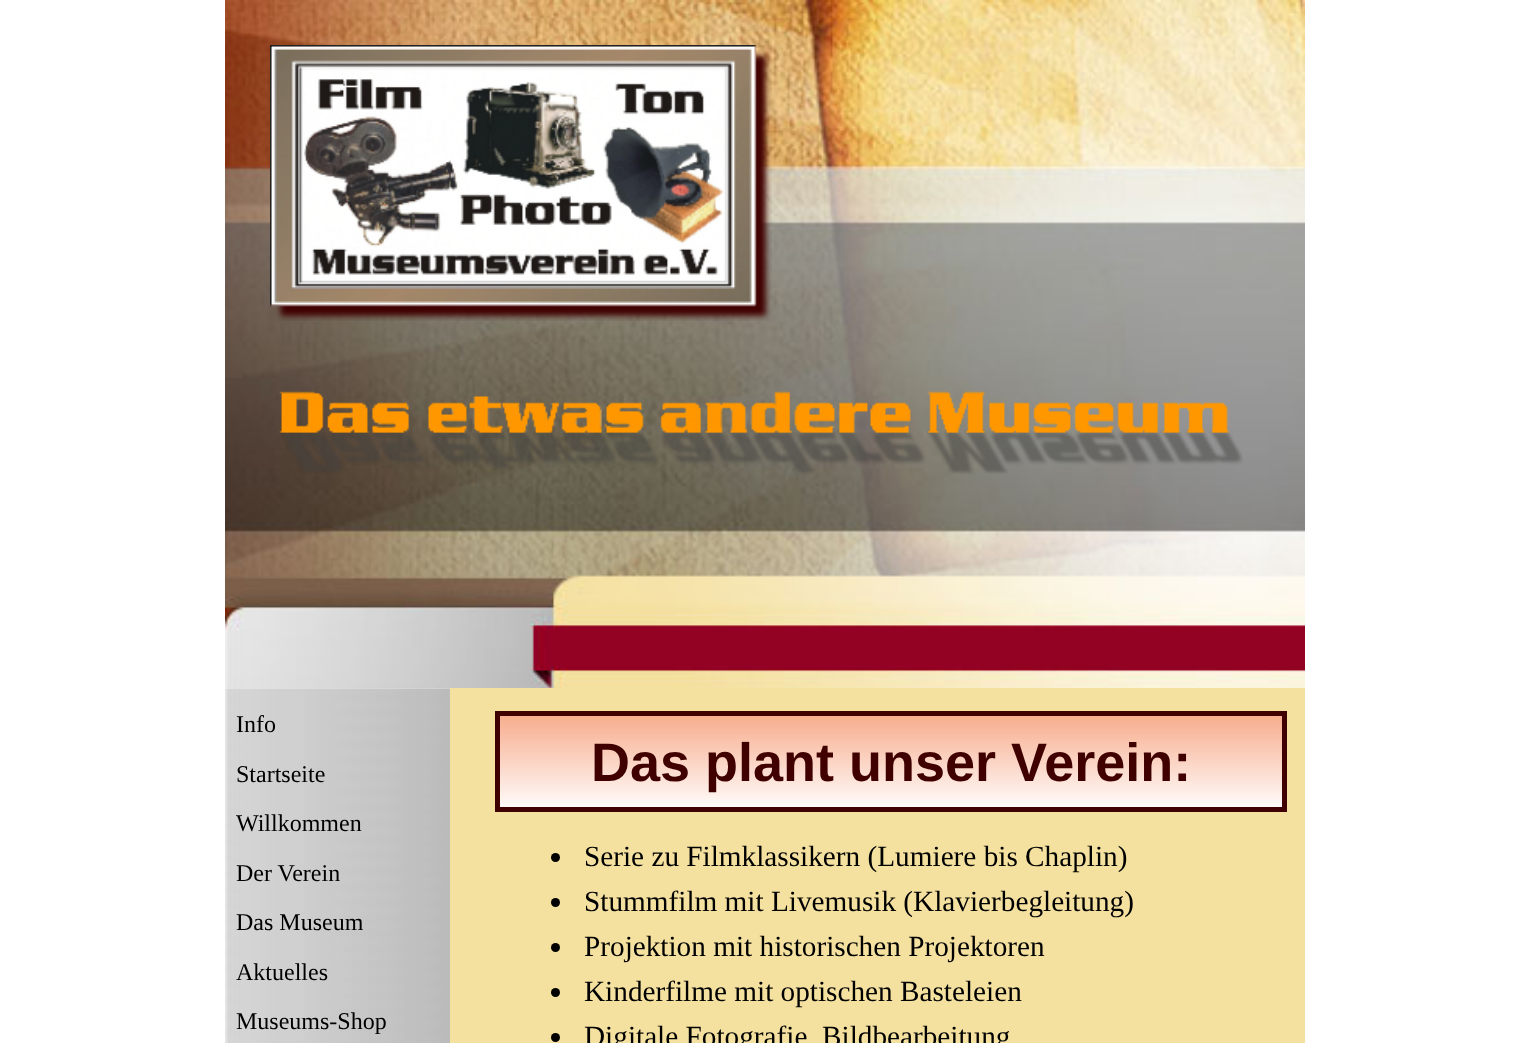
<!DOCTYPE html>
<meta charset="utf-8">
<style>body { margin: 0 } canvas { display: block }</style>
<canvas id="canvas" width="1530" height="1043"></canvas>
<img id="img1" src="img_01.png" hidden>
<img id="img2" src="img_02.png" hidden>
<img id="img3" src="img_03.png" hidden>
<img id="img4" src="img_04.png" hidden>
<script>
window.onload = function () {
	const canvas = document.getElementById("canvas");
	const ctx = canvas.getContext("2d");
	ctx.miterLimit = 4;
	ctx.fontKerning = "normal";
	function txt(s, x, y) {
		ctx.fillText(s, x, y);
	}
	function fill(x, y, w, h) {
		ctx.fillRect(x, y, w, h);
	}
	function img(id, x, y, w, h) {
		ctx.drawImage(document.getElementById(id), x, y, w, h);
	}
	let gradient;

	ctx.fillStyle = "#FFFFFF";
	fill(0, 0, 1530, 1043);
	img("img1", 225, 0, 1080, 689);
	img("img2", 270, 45, 502, 276);
	img("img3", 279, 391, 964, 83);
	img("img4", 225, 688, 225, 355);
	ctx.fillStyle = "#F4E19F";
	fill(450, 688, 855, 355);
	gradient = ctx.createLinearGradient(891, 711, 891, 812);
	gradient.addColorStop(0, "#F7A988");
	gradient.addColorStop(1, "#FFFFFF");
	ctx.fillStyle = gradient;
	fill(500, 716, 782, 91);
	ctx.strokeStyle = "#400000";
	ctx.lineWidth = 5;
	ctx.strokeRect(497.5, 713.5, 787, 96);
	ctx.fillStyle = "#000000";
	ctx.beginPath();
	ctx.arc(555.5, 857.5, 4.5, 0, Math.PI * 2);
	ctx.fill();
	ctx.beginPath();
	ctx.arc(555.5, 902.5, 4.5, 0, Math.PI * 2);
	ctx.fill();
	ctx.beginPath();
	ctx.arc(555.5, 947.5, 4.5, 0, Math.PI * 2);
	ctx.fill();
	ctx.beginPath();
	ctx.arc(555.5, 992.5, 4.5, 0, Math.PI * 2);
	ctx.fill();
	ctx.beginPath();
	ctx.arc(555.5, 1037.5, 4.5, 0, Math.PI * 2);
	ctx.fill();
	ctx.font = "24px Liberation Serif";
	txt("Info", 236, 732);
	txt("Startseite", 236, 782);
	txt("Willkommen", 236, 831);
	txt("Der Verein", 236, 881);
	txt("Das Museum", 236, 930);
	txt("Aktuelles", 236, 980);
	txt("Museums-Shop", 236, 1029);
	ctx.font = "bold 54px Liberation Sans";
	ctx.fillStyle = "#400000";
	txt("Das plant unser Verein:", 591, 781);
	ctx.font = "29.25px Liberation Serif";
	ctx.fillStyle = "#000000";
	txt("Serie zu Filmklassikern (Lumiere bis Chaplin)", 584, 866);
	txt("Stummfilm mit Livemusik (Klavierbegleitung)", 584, 911);
	txt("Projektion mit historischen Projektoren", 584, 956);
	txt("Kinderfilme mit optischen Basteleien", 584, 1001);
	txt("Digitale Fotografie, Bildbearbeitung", 584, 1046);
};
</script>
